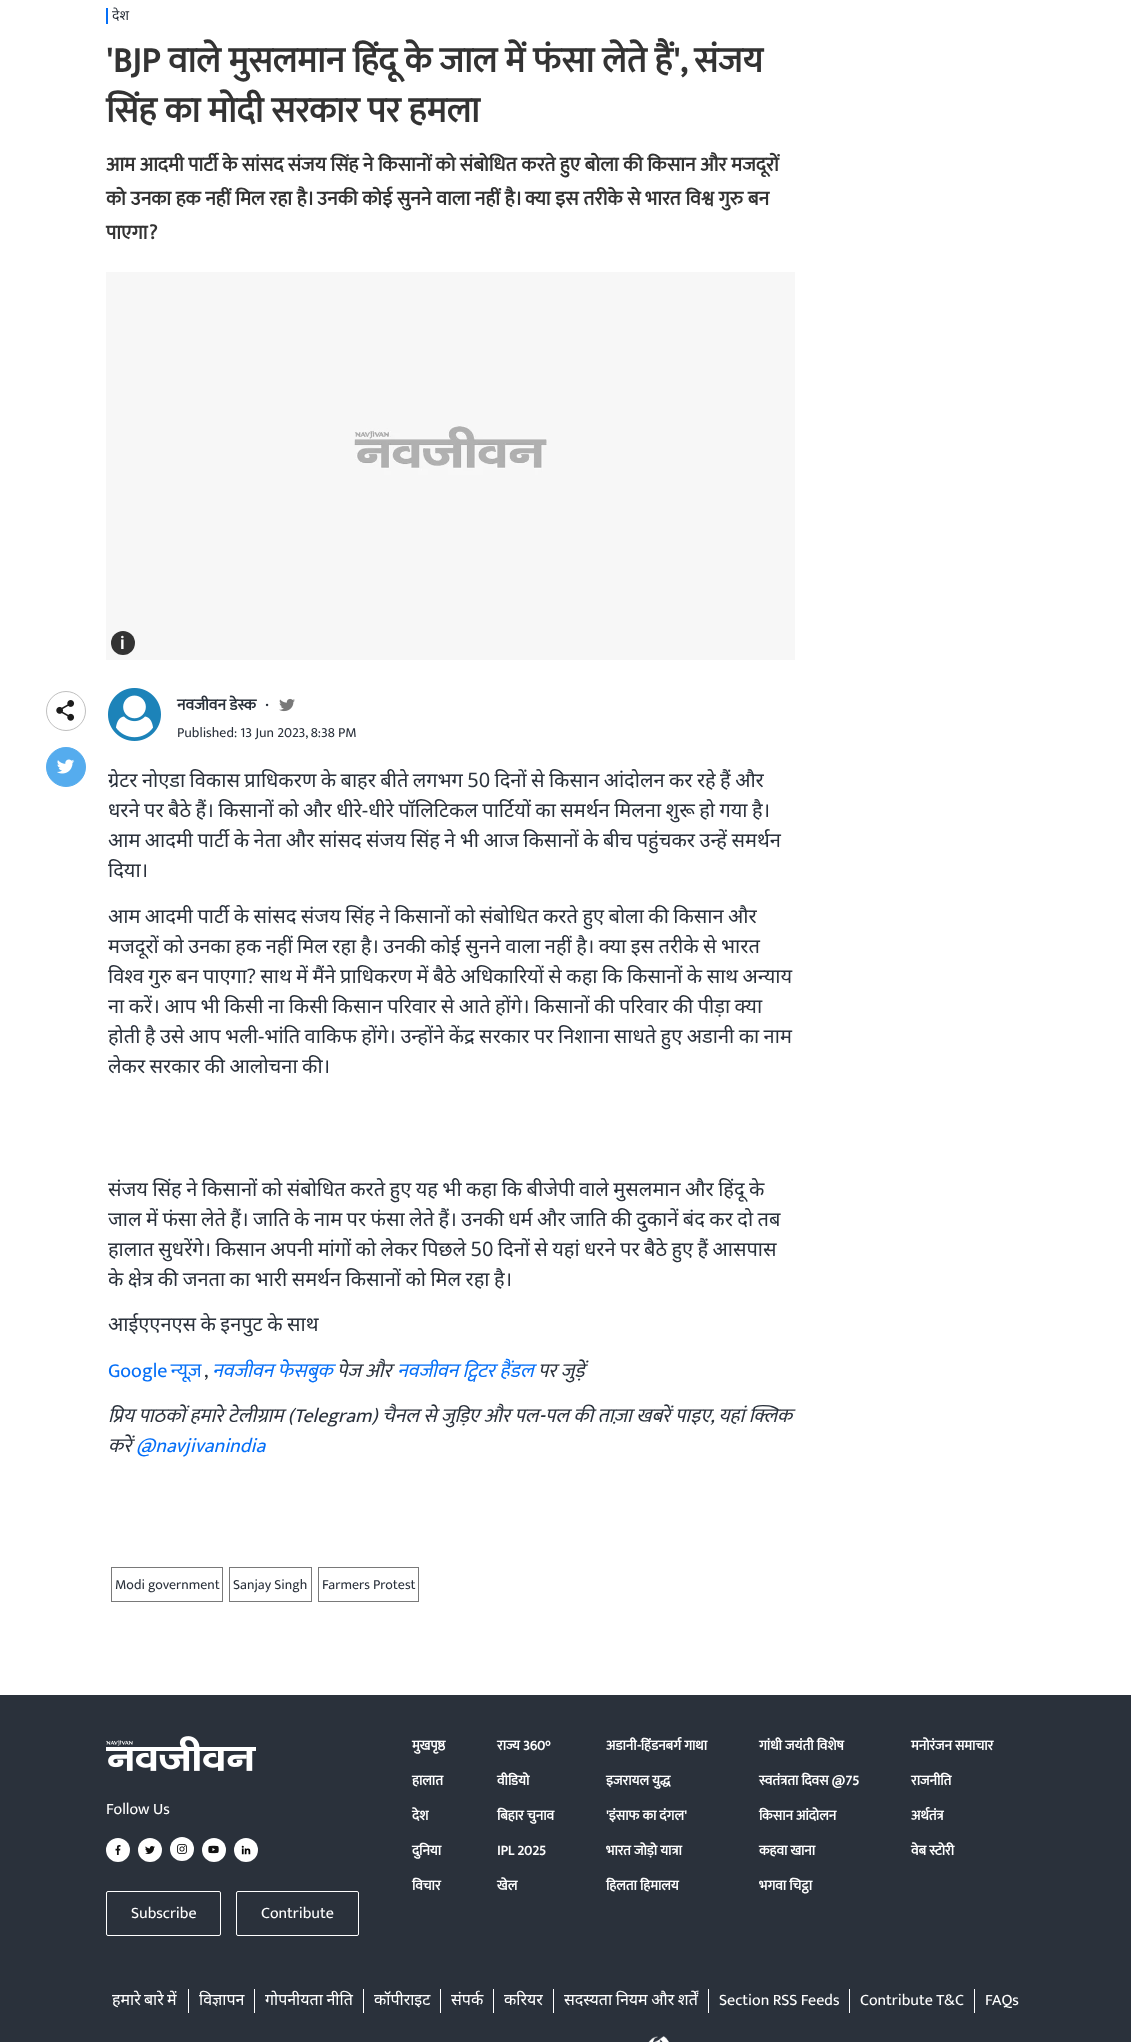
<!DOCTYPE html>
<meta charset="utf-8">
<style>body { margin: 0 } canvas { display: block }</style>
<canvas id="canvas" width="1131" height="2042"></canvas>
<img id="img1" src="img_01.png" hidden>
<img id="img2" src="img_02.png" hidden>
<img id="img3" src="img_03.png" hidden>
<img id="img4" src="img_04.png" hidden>
<img id="img5" src="img_05.png" hidden>
<img id="img6" src="img_06.png" hidden>
<img id="img7" src="img_07.png" hidden>
<img id="img8" src="img_08.png" hidden>
<img id="img9" src="img_09.png" hidden>
<img id="img10" src="img_10.png" hidden>
<img id="img11" src="img_11.png" hidden>
<img id="img12" src="img_12.png" hidden>
<script>
window.onload = function () {
	const canvas = document.getElementById("canvas");
	const ctx = canvas.getContext("2d");
	ctx.miterLimit = 4;
	ctx.fontKerning = "normal";
	function txt(s, x, y) {
		ctx.fillText(s, x, y);
	}
	function fill(x, y, w, h) {
		ctx.fillRect(x, y, w, h);
	}
	function img(id, x, y, w, h) {
		ctx.drawImage(document.getElementById(id), x, y, w, h);
	}

	ctx.fillStyle = "#FFFFFF";
	fill(0, 0, 1131, 2042);
	img("img1", 106, 272, 689, 388);
	ctx.fillStyle = "#333333";
	ctx.beginPath();
	ctx.arc(123, 643, 12, 0, Math.PI * 2);
	ctx.fill();
	ctx.beginPath();
	ctx.arc(66, 711, 19.5, 0, Math.PI * 2);
	ctx.strokeStyle = "#BFBFBF";
	ctx.stroke();
	img("img2", 56, 700, 19, 21);
	ctx.fillStyle = "#55ACEE";
	ctx.beginPath();
	ctx.arc(66, 767, 19.5, 0, Math.PI * 2);
	ctx.fill();
	ctx.strokeStyle = "#55ACEE";
	ctx.stroke();
	img("img3", 57, 759, 18, 15);
	img("img4", 108, 688, 53, 53);
	img("img5", 279, 698, 16, 14);
	ctx.strokeStyle = "#797979";
	ctx.strokeRect(111.5, 1567.5, 111, 34);
	ctx.strokeRect(229.5, 1567.5, 82, 34);
	ctx.strokeRect(318.5, 1567.5, 100, 34);
	ctx.fillStyle = "#2A313B";
	fill(0, 1695, 1131, 347);
	img("img6", 106, 1736, 150, 35);
	ctx.fillStyle = "#FFFFFF";
	ctx.beginPath();
	ctx.arc(118, 1850, 12, 0, Math.PI * 2);
	ctx.fill();
	img("img7", 115, 1845, 6, 10);
	ctx.beginPath();
	ctx.arc(150, 1850, 12, 0, Math.PI * 2);
	ctx.fill();
	img("img8", 145, 1846, 10, 8);
	ctx.beginPath();
	ctx.arc(182, 1849, 12, 0, Math.PI * 2);
	ctx.fill();
	img("img9", 177, 1844, 10, 10);
	ctx.beginPath();
	ctx.arc(214, 1850, 12, 0, Math.PI * 2);
	ctx.fill();
	img("img10", 208, 1845, 11, 9);
	ctx.beginPath();
	ctx.arc(246, 1850, 12, 0, Math.PI * 2);
	ctx.fill();
	img("img11", 241, 1845, 10, 10);
	ctx.beginPath();
	ctx.roundRect(106.5, 1891.5, 114, 44, 1.5);
	ctx.strokeStyle = "#FFFFFF";
	ctx.stroke();
	ctx.beginPath();
	ctx.roundRect(236.5, 1891.5, 122, 44, 1.5);
	ctx.stroke();
	fill(188, 1989, 1, 24);
	fill(254, 1989, 1, 24);
	fill(363, 1989, 1, 24);
	fill(440, 1989, 1, 24);
	fill(493, 1989, 1, 24);
	fill(553, 1989, 1, 24);
	fill(708, 1989, 1, 24);
	fill(849, 1989, 1, 24);
	fill(974, 1989, 1, 24);
	img("img12", 648, 2036, 21, 6);
	ctx.font = "14px Noto Sans";
	ctx.fillStyle = "#2A313B";
	txt("देश", 112, 20);
	ctx.fillStyle = "#056FF7";
	fill(106, 8, 2, 16);
	ctx.font = "bold 36px Ek Mukta";
	ctx.fillStyle = "#333333";
	txt("'BJP वाले मुसलमान हिंदू के जाल में फंसा लेते हैं', संजय", 106, 72);
	txt("सिंह का मोदी सरकार पर हमला", 106, 122);
	ctx.font = "bold 20px Ek Mukta";
	txt("आम आदमी पार्टी के सांसद संजय सिंह ने किसानों को संबोधित करते हुए बोला की किसान और मजदूरों", 106, 171);
	ctx.wordSpacing = "0.25px";
	txt("को उनका हक नहीं मिल रहा है। उनकी कोई सुनने वाला नहीं है। क्या इस तरीके से भारत विश्व गुरु बन", 106, 205);
	ctx.wordSpacing = "0px";
	txt("पाएगा?", 106, 239);
	ctx.font = "600 18px Roboto";
	ctx.fillStyle = "#FFFFFF";
	txt("i", 120, 649);
	ctx.font = "bold 16px Ek Mukta";
	ctx.fillStyle = "#2A313B";
	txt("नवजीवन डेस्क", 177, 710);
	txt(".", 265, 706);
	ctx.font = "14px Ek Mukta";
	txt("Published: 13 Jun 2023, 8:38 PM", 177, 737);
	ctx.save();
	ctx.beginPath();
	ctx.rect(108, 680, 687, 945);
	ctx.clip();
	ctx.wordSpacing = "-0.8px";
	ctx.font = "20px Noto Sans";
	txt("ग्रेटर नोएडा विकास प्राधिकरण के बाहर बीते लगभग 50 दिनों से किसान आंदोलन कर रहे हैं और", 108, 787);
	ctx.restore();
	ctx.wordSpacing = "-0.75px";
	ctx.font = "20px Noto Sans";
	txt("धरने पर बैठे हैं। किसानों को और धीरे-धीरे पॉलिटिकल पार्टियों का समर्थन मिलना शुरू हो गया है।", 108, 817);
	txt("आम आदमी पार्टी के नेता और सांसद संजय सिंह ने भी आज किसानों के बीच पहुंचकर उन्हें समर्थन", 108, 847);
	ctx.wordSpacing = "0px";
	txt("दिया।", 108, 877);
	ctx.wordSpacing = "-0.75px";
	txt("आम आदमी पार्टी के सांसद संजय सिंह ने किसानों को संबोधित करते हुए बोला की किसान और", 108, 923);
	txt("मजदूरों को उनका हक नहीं मिल रहा है। उनकी कोई सुनने वाला नहीं है। क्या इस तरीके से भारत", 108, 953);
	txt("विश्व गुरु बन पाएगा? साथ में मैंने प्राधिकरण में बैठे अधिकारियों से कहा कि किसानों के साथ अन्याय", 108, 983);
	txt("ना करें। आप भी किसी ना किसी किसान परिवार से आते होंगे। किसानों की परिवार की पीड़ा क्या", 108, 1013);
	ctx.save();
	ctx.beginPath();
	ctx.rect(108, 680, 687, 945);
	ctx.clip();
	txt("होती है उसे आप भली-भांति वाकिफ होंगे। उन्होंने केंद्र सरकार पर निशाना साधते हुए अडानी का नाम", 108, 1043);
	txt("लेकर सरकार की आलोचना की।", 108, 1073);
	txt("संजय सिंह ने किसानों को संबोधित करते हुए यह भी कहा कि बीजेपी वाले मुसलमान और हिंदू के", 108, 1196);
	ctx.restore();
	txt("जाल में फंसा लेते हैं। जाति के नाम पर फंसा लेते हैं। उनकी धर्म और जाति की दुकानें बंद कर दो तब", 108, 1226);
	ctx.wordSpacing = "-0.8px";
	txt("हालात सुधरेंगे। किसान अपनी मांगों को लेकर पिछले 50 दिनों से यहां धरने पर बैठे हुए हैं आसपास", 108, 1256);
	ctx.save();
	ctx.beginPath();
	ctx.rect(108, 680, 687, 945);
	ctx.clip();
	ctx.wordSpacing = "-0.75px";
	txt("के क्षेत्र की जनता का भारी समर्थन किसानों को मिल रहा है।", 108, 1286);
	ctx.restore();
	ctx.wordSpacing = "-0.75px";
	txt("आईएएनएस के इनपुट के साथ", 108, 1331);
	ctx.wordSpacing = "-1px";
	ctx.font = "20px Ek Mukta";
	ctx.fillStyle = "#056FF7";
	txt("Google न्यूज़", 108, 1377);
	ctx.wordSpacing = "0px";
	ctx.font = "italic 20px Ek Mukta";
	txt("नवजीवन फेसबुक", 212, 1377);
	ctx.fillStyle = "#2A313B";
	txt("पेज और", 337, 1377);
	ctx.fillStyle = "#056FF7";
	txt("नवजीवन ट्विटर हैंडल", 397, 1377);
	ctx.fillStyle = "#2A313B";
	txt("पर जुड़ें", 538, 1377);
	ctx.font = "20px Ek Mukta";
	txt(",", 204, 1377);
	ctx.font = "italic 20px Ek Mukta";
	txt("प्रिय पाठकों हमारे टेलीग्राम (Telegram) चैनल से जुड़िए और पल-पल की ताज़ा खबरें पाइए, यहां क्लिक", 108, 1422);
	txt("करें", 108, 1452);
	ctx.fillStyle = "#056FF7";
	txt("@navjivanindia", 136, 1452);
	ctx.font = "14px Ek Mukta";
	ctx.fillStyle = "#2A313B";
	txt("Modi government", 115, 1589);
	txt("Sanjay Singh", 233, 1589);
	txt("Farmers Protest", 322, 1589);
	ctx.font = "16px Ek Mukta";
	ctx.fillStyle = "#FFFFFF";
	txt("Follow Us", 106, 1814);
	txt("Subscribe", 131, 1918);
	txt("Contribute", 261, 1918);
	ctx.font = "bold 14px Ek Mukta";
	txt("मुखपृष्ठ", 412, 1750);
	txt("राज्य 360°", 497, 1750);
	txt("अडानी-हिंडनबर्ग गाथा", 606, 1750);
	txt("गांधी जयंती विशेष", 759, 1750);
	txt("मनोरंजन समाचार", 911, 1750);
	txt("हालात", 412, 1785);
	txt("वीडियो", 497, 1785);
	txt("इजरायल युद्ध", 606, 1785);
	txt("स्वतंत्रता दिवस @75", 759, 1785);
	txt("राजनीति", 911, 1785);
	txt("देश", 412, 1820);
	txt("बिहार चुनाव", 497, 1820);
	txt("'इंसाफ का दंगल'", 606, 1820);
	txt("किसान आंदोलन", 759, 1820);
	txt("अर्थतंत्र", 911, 1820);
	txt("दुनिया", 412, 1855);
	txt("IPL 2025", 497, 1855);
	txt("भारत जोड़ो यात्रा", 606, 1855);
	txt("कहवा खाना", 759, 1855);
	txt("वेब स्टोरी", 911, 1855);
	txt("विचार", 412, 1890);
	txt("खेल", 497, 1890);
	txt("हिलता हिमालय", 606, 1890);
	txt("भगवा चिट्ठा", 759, 1890);
	ctx.wordSpacing = "-1px";
	ctx.font = "16px Noto Sans";
	txt("हमारे बारे में", 112, 2005);
	ctx.wordSpacing = "0px";
	txt("विज्ञापन", 199, 2005);
	ctx.wordSpacing = "-0.5px";
	txt("गोपनीयता नीति", 265, 2005);
	ctx.wordSpacing = "0px";
	txt("कॉपीराइट", 374, 2005);
	txt("संपर्क", 451, 2005);
	txt("करियर", 504, 2005);
	ctx.wordSpacing = "-0.5px";
	txt("सदस्यता नियम और शर्तें", 564, 2005);
	ctx.wordSpacing = "0px";
	ctx.font = "16px Ek Mukta";
	txt("Section RSS Feeds", 719, 2005);
	txt("Contribute T&C", 860, 2005);
	txt("FAQs", 985, 2005);
};
</script>
